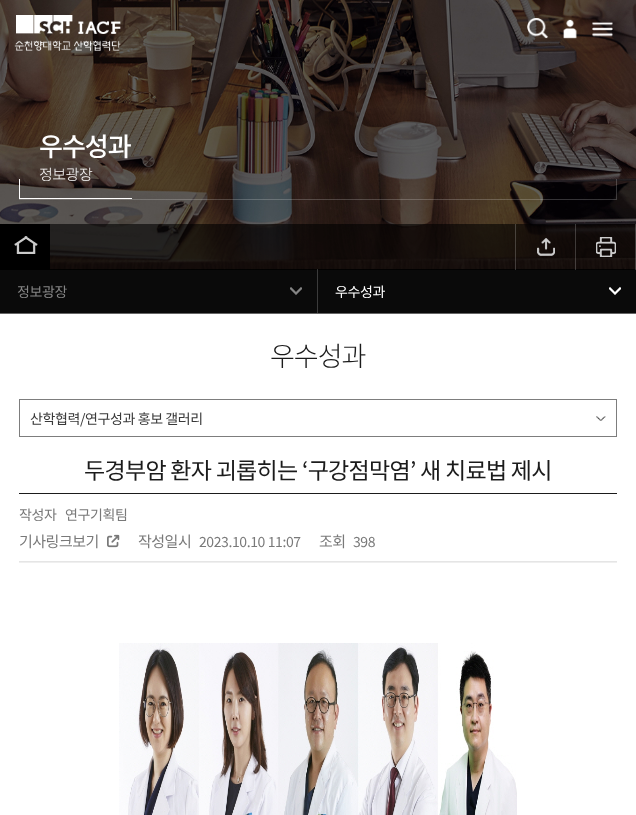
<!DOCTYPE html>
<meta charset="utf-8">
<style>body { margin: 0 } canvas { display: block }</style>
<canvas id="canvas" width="636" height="815"></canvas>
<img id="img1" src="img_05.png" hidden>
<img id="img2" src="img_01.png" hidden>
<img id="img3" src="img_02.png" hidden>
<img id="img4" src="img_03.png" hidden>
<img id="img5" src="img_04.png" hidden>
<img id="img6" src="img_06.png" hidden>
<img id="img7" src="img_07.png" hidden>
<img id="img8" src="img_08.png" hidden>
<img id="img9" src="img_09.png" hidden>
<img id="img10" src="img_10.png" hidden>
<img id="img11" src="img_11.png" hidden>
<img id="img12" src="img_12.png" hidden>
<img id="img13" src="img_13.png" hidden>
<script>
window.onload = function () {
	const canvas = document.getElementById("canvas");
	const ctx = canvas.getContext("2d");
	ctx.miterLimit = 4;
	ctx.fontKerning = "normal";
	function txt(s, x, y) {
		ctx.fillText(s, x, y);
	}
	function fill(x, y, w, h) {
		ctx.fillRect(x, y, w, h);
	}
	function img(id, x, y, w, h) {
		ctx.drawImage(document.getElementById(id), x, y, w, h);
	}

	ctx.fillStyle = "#FFFFFF";
	fill(0, 0, 636, 815);
	img("img1", 0, 0, 636, 270);
	img("img2", 14, 15, 107, 36);
	img("img3", 527, 18, 22, 21);
	img("img4", 563, 19, 14, 20);
	img("img5", 592, 22, 21, 15);
	ctx.fillStyle = "rgba(255, 255, 255, 0.2)";
	fill(19, 199, 598, 1);
	ctx.fillStyle = "#FFFFFF";
	fill(19, 179, 1, 20);
	fill(19, 198, 113, 1);
	ctx.fillStyle = "rgba(255, 255, 255, 0.2)";
	fill(616, 179, 1, 20);
	ctx.fillStyle = "rgba(0, 0, 0, 0.6)";
	fill(0, 224, 636, 90);
	ctx.fillStyle = "#000000";
	fill(0, 224, 50, 46);
	img("img6", 14, 236, 24, 18);
	ctx.fillStyle = "rgba(0, 0, 0, 0.9)";
	fill(318, 269, 318, 44);
	ctx.fillStyle = "rgba(255, 255, 255, 0.2)";
	fill(635, 224, 1, 46);
	fill(515, 224, 1, 46);
	img("img7", 537, 238, 18, 18);
	fill(575, 224, 1, 46);
	img("img8", 596, 237, 20, 20);
	ctx.fillStyle = "rgba(0, 0, 0, 0.9)";
	fill(0, 269, 318, 44);
	ctx.fillStyle = "rgba(255, 255, 255, 0.2)";
	fill(317, 269, 1, 44);
	img("img9", 290, 287, 12, 8);
	img("img10", 609, 287, 12, 8);
	img("img11", 596, 416, 10, 5);
	ctx.strokeStyle = "#7D7D7D";
	ctx.strokeRect(19.5, 399.5, 597, 37);
	ctx.fillStyle = "#1B1B1B";
	fill(19, 493, 598, 1);
	ctx.fillStyle = "#E5E5E5";
	fill(19, 561, 598, 1);
	img("img12", 107, 534, 13, 14);
	ctx.fillStyle = "#EFEFEF";
	fill(19, 562, 598, 1);
	img("img13", 119, 643, 398, 172);
	ctx.letterSpacing = "-1px";
	ctx.font = "500 26px Noto Sans KR";
	ctx.fillStyle = "#FFFFFF";
	txt("우수성과", 39, 156);
	ctx.letterSpacing = "-0.5px";
	ctx.font = "300 15px Noto Sans KR";
	txt("정보광장", 39, 180);
	ctx.letterSpacing = "-0.4px";
	ctx.font = "14px Noto Sans KR";
	ctx.fillStyle = "#858585";
	txt("정보광장", 17, 297);
	ctx.fillStyle = "#FFFFFF";
	txt("우수성과", 335, 297);
	ctx.letterSpacing = "-1px";
	ctx.font = "300 27px Noto Sans KR";
	ctx.fillStyle = "#1B1B1B";
	txt("우수성과", 270, 366);
	ctx.letterSpacing = "-0.4px";
	ctx.font = "14px Noto Sans KR";
	ctx.fillStyle = "#393939";
	txt("산학협력/연구성과 홍보 갤러리", 30, 424);
	ctx.letterSpacing = "-0.7px";
	ctx.font = "23px Noto Sans KR";
	ctx.fillStyle = "#1B1B1B";
	txt("두경부암 환자 괴롭히는 ‘구강점막염’ 새 치료법 제시", 84, 479);
	ctx.letterSpacing = "-0.4px";
	ctx.font = "14px Noto Sans KR";
	ctx.fillStyle = "#797979";
	txt("작성자", 19, 520);
	txt("연구기획팀", 65, 520);
	ctx.letterSpacing = "-0.5px";
	ctx.font = "15px Noto Sans KR";
	txt("기사링크보기", 19, 547);
	txt("작성일시", 138, 547);
	ctx.letterSpacing = "-0.4px";
	ctx.font = "14px Noto Sans KR";
	txt("2023.10.10 11:07", 199, 547);
	ctx.letterSpacing = "-0.5px";
	ctx.font = "15px Noto Sans KR";
	txt("조회", 319, 547);
	ctx.letterSpacing = "-0.4px";
	ctx.font = "14px Noto Sans KR";
	txt("398", 353, 547);
};
</script>
